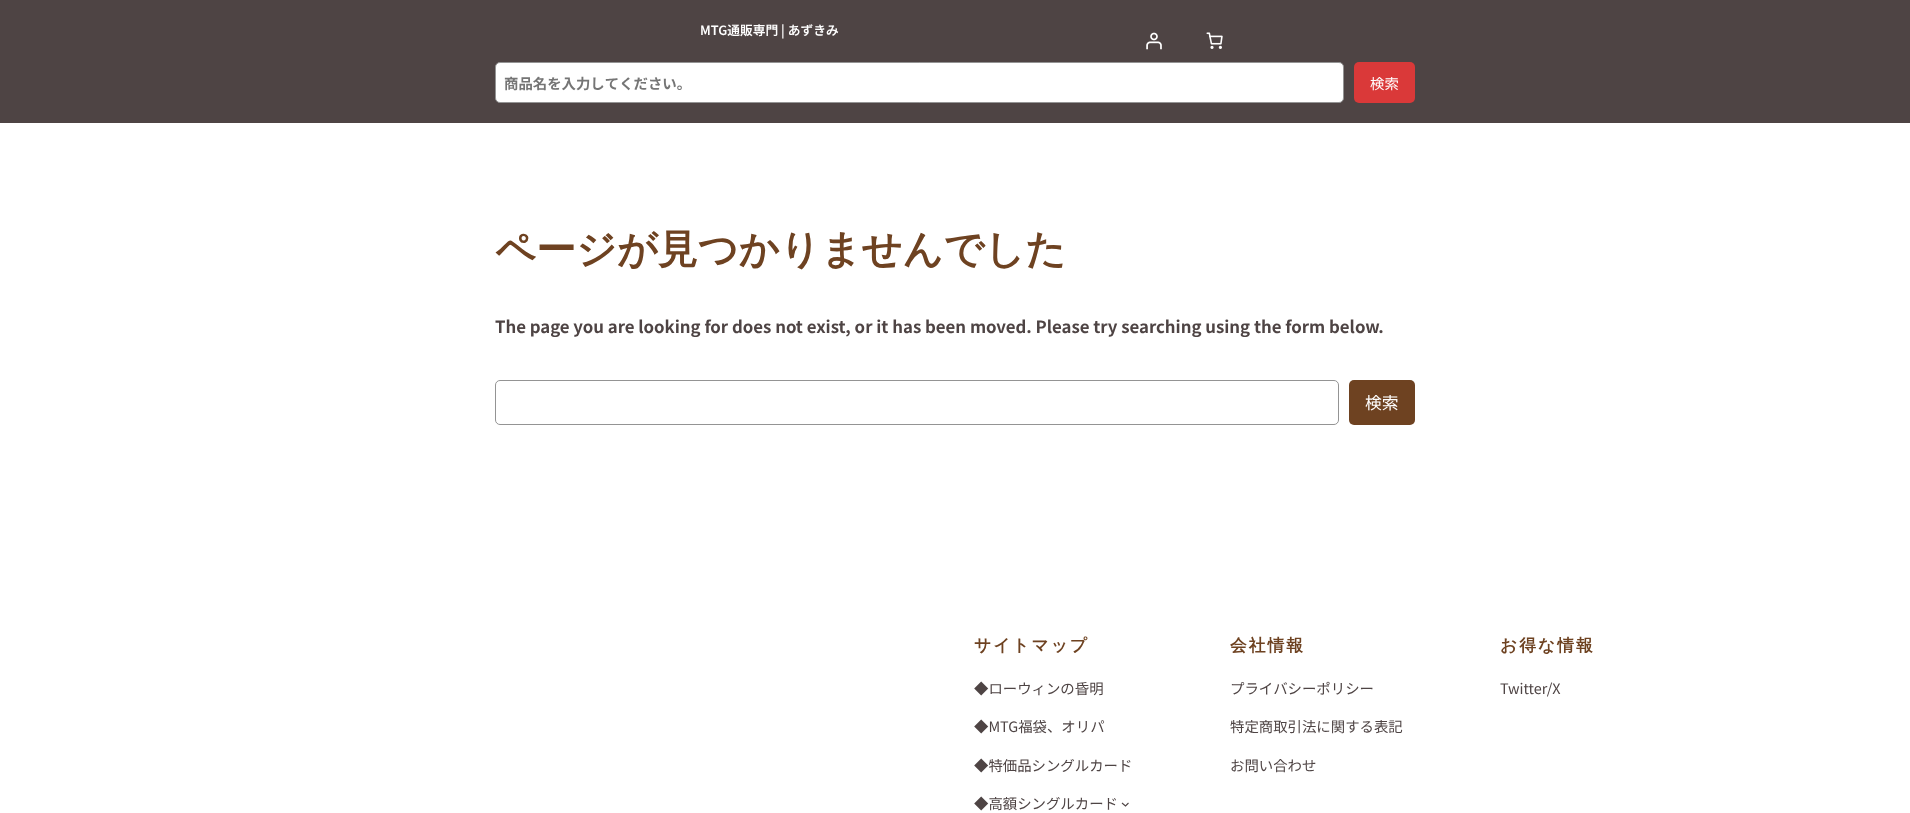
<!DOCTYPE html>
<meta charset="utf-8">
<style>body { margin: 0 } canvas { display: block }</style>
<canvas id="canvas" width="1910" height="813"></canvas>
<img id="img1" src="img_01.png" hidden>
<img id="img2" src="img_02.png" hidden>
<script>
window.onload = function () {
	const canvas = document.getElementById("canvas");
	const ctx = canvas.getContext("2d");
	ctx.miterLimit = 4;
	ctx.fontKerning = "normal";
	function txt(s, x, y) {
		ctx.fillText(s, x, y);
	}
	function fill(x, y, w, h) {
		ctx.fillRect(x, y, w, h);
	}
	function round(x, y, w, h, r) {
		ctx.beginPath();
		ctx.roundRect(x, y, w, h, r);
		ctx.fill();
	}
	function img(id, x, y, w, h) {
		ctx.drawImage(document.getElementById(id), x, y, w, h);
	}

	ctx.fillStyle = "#FFFFFF";
	fill(0, 0, 1910, 813);
	ctx.fillStyle = "#4E4444";
	fill(0, 0, 1910, 123);
	img("img1", 1146, 32, 16, 18);
	img("img2", 1206, 32, 17, 17);
	ctx.fillStyle = "#FFFFFF";
	ctx.beginPath();
	ctx.roundRect(495.5, 62.5, 848, 40, 4.5);
	ctx.fill();
	ctx.strokeStyle = "#949494";
	ctx.stroke();
	ctx.fillStyle = "#DA3939";
	round(1354, 62, 61, 41, 5);
	ctx.beginPath();
	ctx.roundRect(495.5, 380.5, 843, 44, 4.5);
	ctx.stroke();
	ctx.fillStyle = "#6E4221";
	round(1349, 380, 66, 45, 5);
	ctx.beginPath();
	ctx.moveTo(1122, 803);
	ctx.lineTo(1125.5, 806);
	ctx.lineTo(1128.5, 803);
	ctx.strokeStyle = "#4E4444";
	ctx.lineWidth = 1.1;
	ctx.stroke();
	ctx.font = "600 12.75px Noto Sans JP";
	ctx.fillStyle = "#FFFFFF";
	txt("MTG通販専門 | あずきみ", 700, 35);
	ctx.font = "bold 14.4px Noto Sans JP";
	ctx.fillStyle = "#757575";
	txt("商品名を入力してください。", 504, 89);
	ctx.font = "14.4px Noto Sans JP";
	ctx.fillStyle = "#FFFFFF";
	txt("検索", 1370, 89);
	ctx.font = "bold 40px WenQuanYi Zen Hei";
	ctx.fillStyle = "#6E4221";
	txt("ページが見つかりませんでした", 495, 263);
	ctx.font = "bold 16.8px Noto Sans JP";
	ctx.fillStyle = "#4E4444";
	txt("The page you are looking for does not exist, or it has been moved. Please try searching using the form below.", 495, 333);
	ctx.font = "16.8px Noto Sans JP";
	ctx.fillStyle = "#FFFFFF";
	txt("検索", 1365, 409);
	ctx.letterSpacing = "2px";
	ctx.font = "bold 16.8px WenQuanYi Zen Hei";
	ctx.fillStyle = "#6E4221";
	txt("サイトマップ", 974, 651);
	ctx.letterSpacing = "0px";
	ctx.font = "14.4px Noto Sans JP";
	ctx.fillStyle = "#4E4444";
	txt("◆ローウィンの昏明", 974, 694);
	txt("◆MTG福袋、オリパ", 974, 732);
	txt("◆特価品シングルカード", 974, 771);
	txt("◆高額シングルカード", 974, 809);
	ctx.letterSpacing = "2px";
	ctx.font = "bold 16.8px WenQuanYi Zen Hei";
	ctx.fillStyle = "#6E4221";
	txt("会社情報", 1230, 651);
	ctx.letterSpacing = "0px";
	ctx.font = "14.4px Noto Sans JP";
	ctx.fillStyle = "#4E4444";
	txt("プライバシーポリシー", 1230, 694);
	txt("特定商取引法に関する表記", 1230, 732);
	txt("お問い合わせ", 1230, 771);
	ctx.letterSpacing = "2px";
	ctx.font = "bold 16.8px WenQuanYi Zen Hei";
	ctx.fillStyle = "#6E4221";
	txt("お得な情報", 1500, 651);
	ctx.letterSpacing = "0px";
	ctx.font = "14.4px Noto Sans JP";
	ctx.fillStyle = "#4E4444";
	txt("Twitter/X", 1500, 694);
};
</script>
